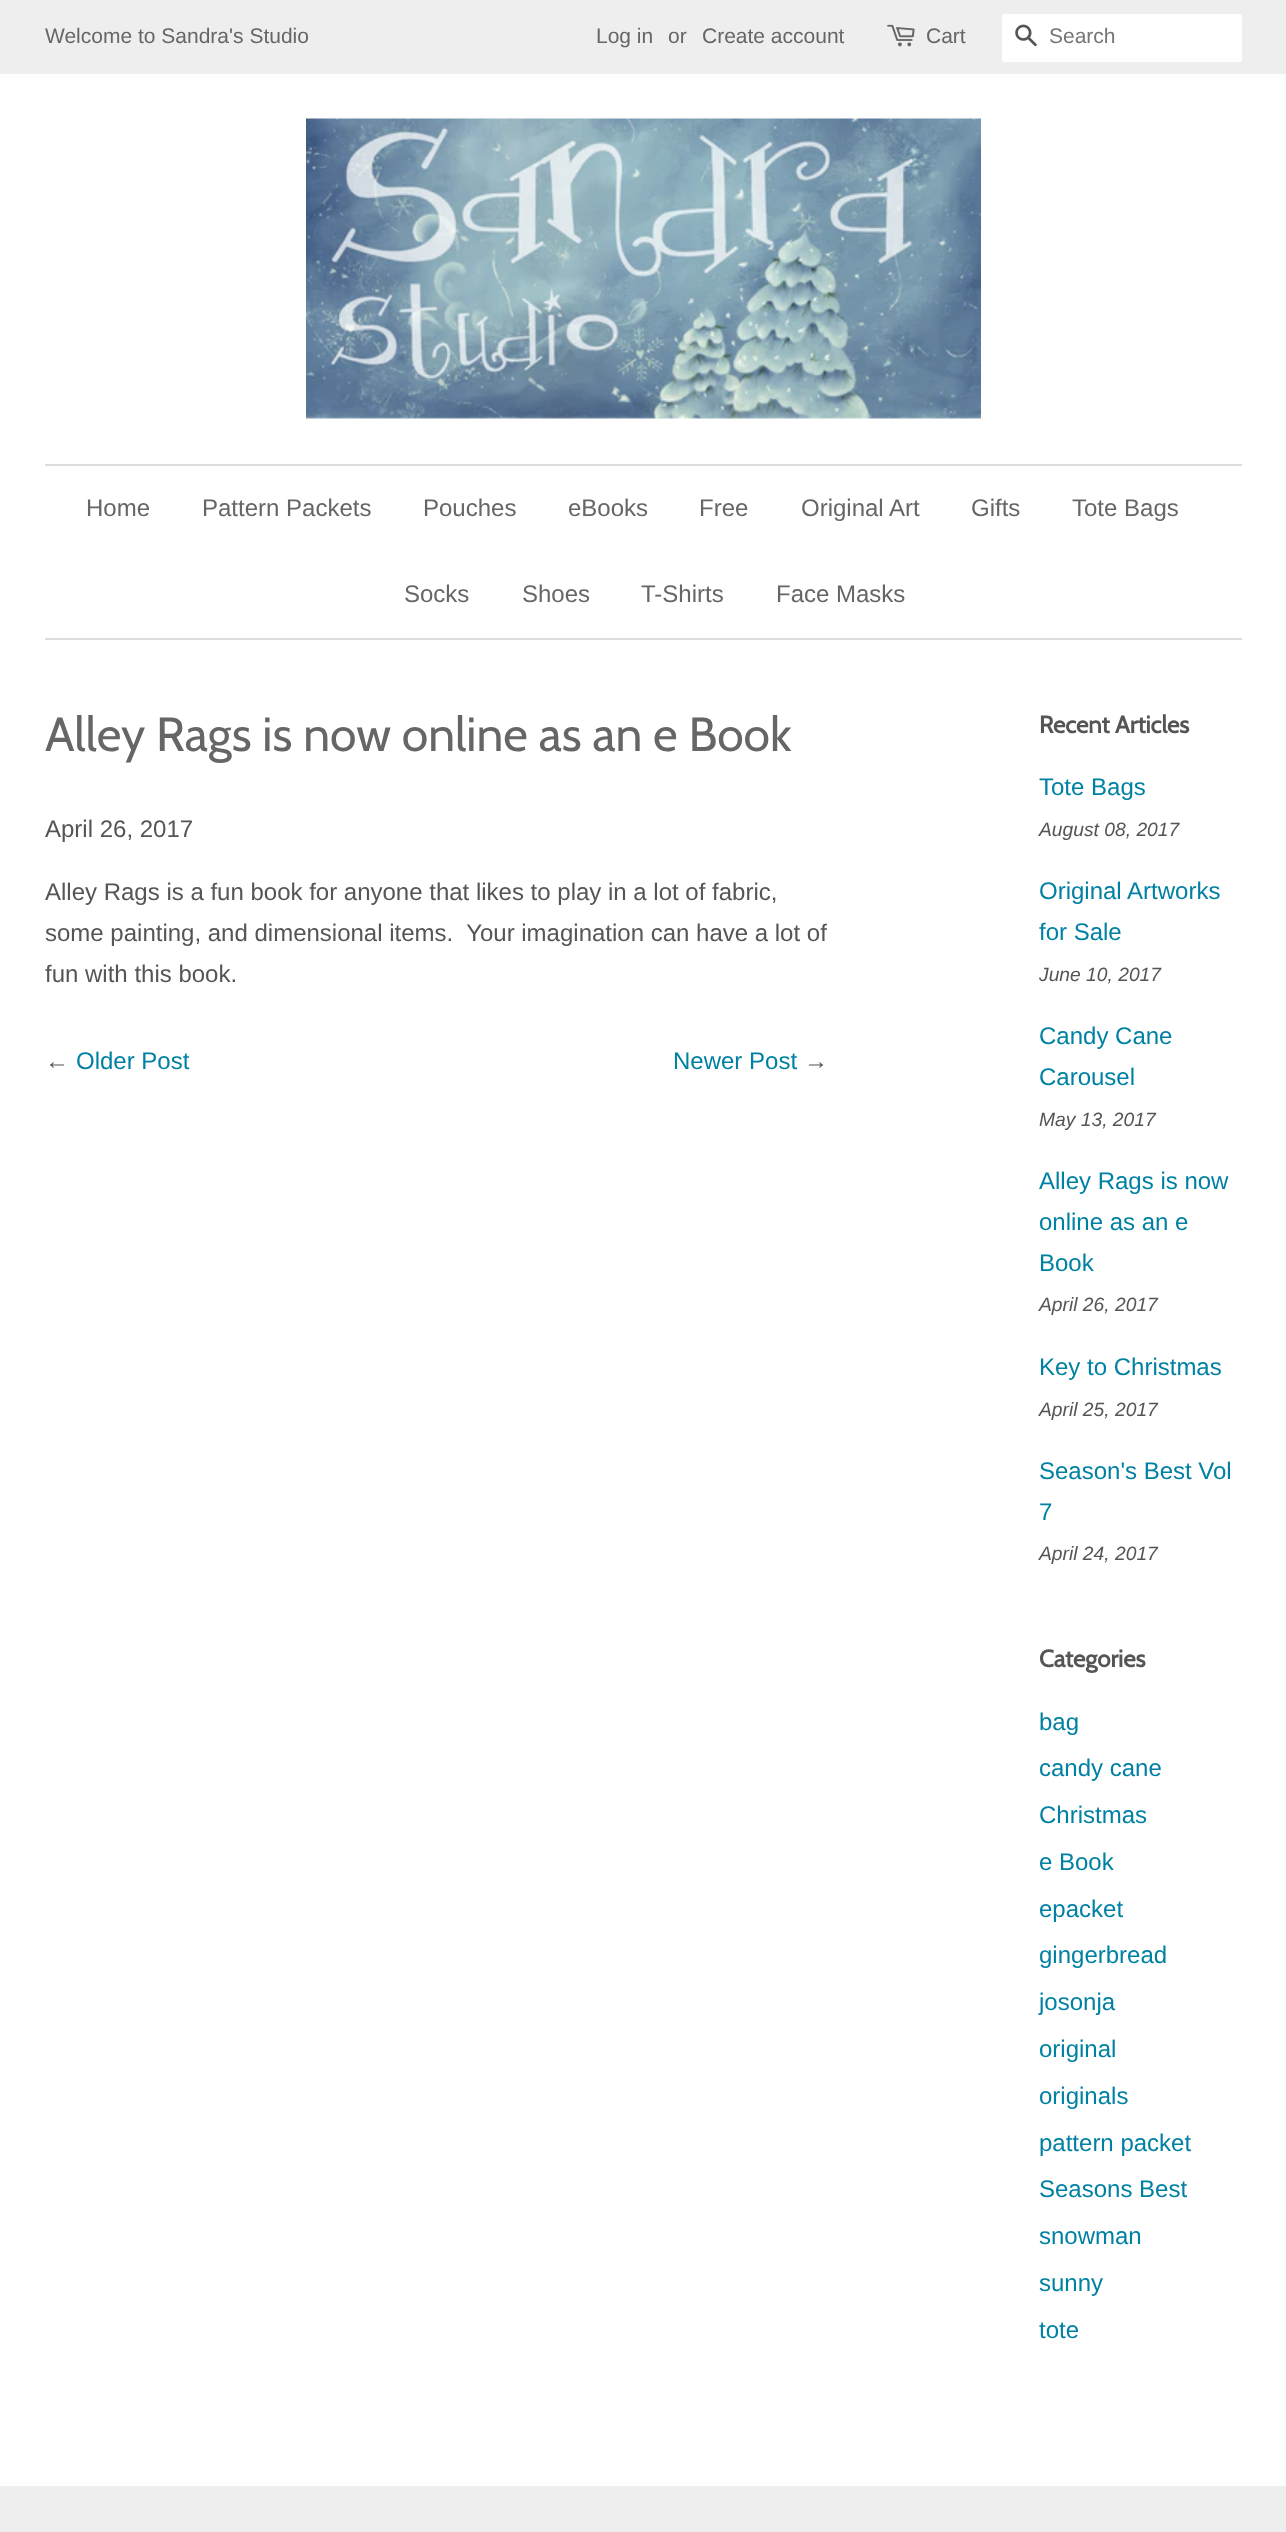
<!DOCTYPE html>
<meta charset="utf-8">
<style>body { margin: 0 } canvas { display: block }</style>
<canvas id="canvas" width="1286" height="2532"></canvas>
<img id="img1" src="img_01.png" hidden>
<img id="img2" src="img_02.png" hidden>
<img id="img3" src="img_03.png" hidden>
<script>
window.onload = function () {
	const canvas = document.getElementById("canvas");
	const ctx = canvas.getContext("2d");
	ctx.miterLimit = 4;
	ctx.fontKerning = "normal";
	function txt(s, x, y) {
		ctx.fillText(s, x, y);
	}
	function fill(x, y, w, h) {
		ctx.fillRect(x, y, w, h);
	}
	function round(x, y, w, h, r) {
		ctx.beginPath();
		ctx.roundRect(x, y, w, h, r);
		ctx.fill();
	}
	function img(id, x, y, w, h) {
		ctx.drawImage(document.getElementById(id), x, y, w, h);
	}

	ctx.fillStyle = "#FFFFFF";
	fill(0, 0, 1286, 2532);
	ctx.fillStyle = "#EEEEEE";
	fill(0, 0, 1286, 74);
	img("img1", 887, 24, 28, 23);
	ctx.fillStyle = "#FFFFFF";
	round(1002, 14, 240, 48, 3);
	img("img2", 1015, 24, 22, 23);
	img("img3", 306, 118, 675, 301);
	ctx.fillStyle = "#DDDDDD";
	fill(45, 464, 1197, 2);
	fill(45, 638, 1197, 2);
	ctx.fillStyle = "#EEEEEE";
	fill(0, 2486, 1286, 46);
	ctx.font = "21px Liberation Sans";
	ctx.fillStyle = "#666666";
	txt("Welcome to Sandra's Studio", 45, 43);
	txt("Log in", 596, 43);
	txt("or", 668, 43);
	txt("Create account", 702, 43);
	txt("Cart", 926, 43);
	ctx.fillStyle = "#757575";
	txt("Search", 1049, 43);
	ctx.font = "24px Liberation Sans";
	ctx.fillStyle = "#666666";
	txt("Home", 86, 516);
	txt("Pattern Packets", 202, 516);
	txt("Pouches", 423, 516);
	txt("eBooks", 568, 516);
	txt("Free", 699, 516);
	txt("Original Art", 801, 516);
	txt("Gifts", 971, 516);
	txt("Tote Bags", 1072, 516);
	txt("Socks", 404, 602);
	txt("Shoes", 522, 602);
	txt("T-Shirts", 641, 602);
	txt("Face Masks", 776, 602);
	ctx.font = "48px Cabin";
	txt("Alley Rags is now online as an e Book", 45, 751);
	ctx.font = "24px Liberation Sans";
	ctx.fillStyle = "#555555";
	txt("April 26, 2017", 45, 837);
	txt("Alley Rags is a fun book for anyone that likes to play in a lot of fabric,", 45, 900);
	txt("some painting, and dimensional items.  Your imagination can have a lot of", 45, 941);
	txt("fun with this book.", 45, 982);
	txt("←", 45, 1069);
	ctx.fillStyle = "#0081A3";
	txt("Older Post", 76, 1069);
	txt("Newer Post", 673, 1069);
	ctx.fillStyle = "#555555";
	txt("→", 804, 1069);
	ctx.font = "bold 24px Cabin";
	txt("Recent Articles", 1039, 733);
	ctx.font = "24px Liberation Sans";
	ctx.fillStyle = "#0081A3";
	txt("Tote Bags", 1039, 795);
	ctx.font = "italic 19.25px Liberation Sans";
	ctx.fillStyle = "#555555";
	txt("August 08, 2017", 1039, 836);
	ctx.font = "24px Liberation Sans";
	ctx.fillStyle = "#0081A3";
	txt("Original Artworks", 1039, 899);
	txt("for Sale", 1039, 940);
	ctx.font = "italic 19.25px Liberation Sans";
	ctx.fillStyle = "#555555";
	txt("June 10, 2017", 1039, 981);
	ctx.font = "24px Liberation Sans";
	ctx.fillStyle = "#0081A3";
	txt("Candy Cane", 1039, 1044);
	txt("Carousel", 1039, 1085);
	ctx.font = "italic 19.25px Liberation Sans";
	ctx.fillStyle = "#555555";
	txt("May 13, 2017", 1039, 1126);
	ctx.font = "24px Liberation Sans";
	ctx.fillStyle = "#0081A3";
	txt("Alley Rags is now", 1039, 1189);
	txt("online as an e", 1039, 1230);
	txt("Book", 1039, 1271);
	ctx.font = "italic 19.25px Liberation Sans";
	ctx.fillStyle = "#555555";
	txt("April 26, 2017", 1039, 1311);
	ctx.font = "24px Liberation Sans";
	ctx.fillStyle = "#0081A3";
	txt("Key to Christmas", 1039, 1375);
	ctx.font = "italic 19.25px Liberation Sans";
	ctx.fillStyle = "#555555";
	txt("April 25, 2017", 1039, 1416);
	ctx.font = "24px Liberation Sans";
	ctx.fillStyle = "#0081A3";
	txt("Season's Best Vol", 1039, 1479);
	txt("7", 1039, 1520);
	ctx.font = "italic 19.25px Liberation Sans";
	ctx.fillStyle = "#555555";
	txt("April 24, 2017", 1039, 1560);
	ctx.font = "bold 24px Cabin";
	txt("Categories", 1039, 1667);
	ctx.font = "24px Liberation Sans";
	ctx.fillStyle = "#0081A3";
	txt("bag", 1039, 1730);
	txt("candy cane", 1039, 1776);
	txt("Christmas", 1039, 1823);
	txt("e Book", 1039, 1870);
	txt("epacket", 1039, 1917);
	txt("gingerbread", 1039, 1963);
	txt("josonja", 1039, 2010);
	txt("original", 1039, 2057);
	txt("originals", 1039, 2104);
	txt("pattern packet", 1039, 2151);
	txt("Seasons Best", 1039, 2197);
	txt("snowman", 1039, 2244);
	txt("sunny", 1039, 2291);
	txt("tote", 1039, 2338);
};
</script>
